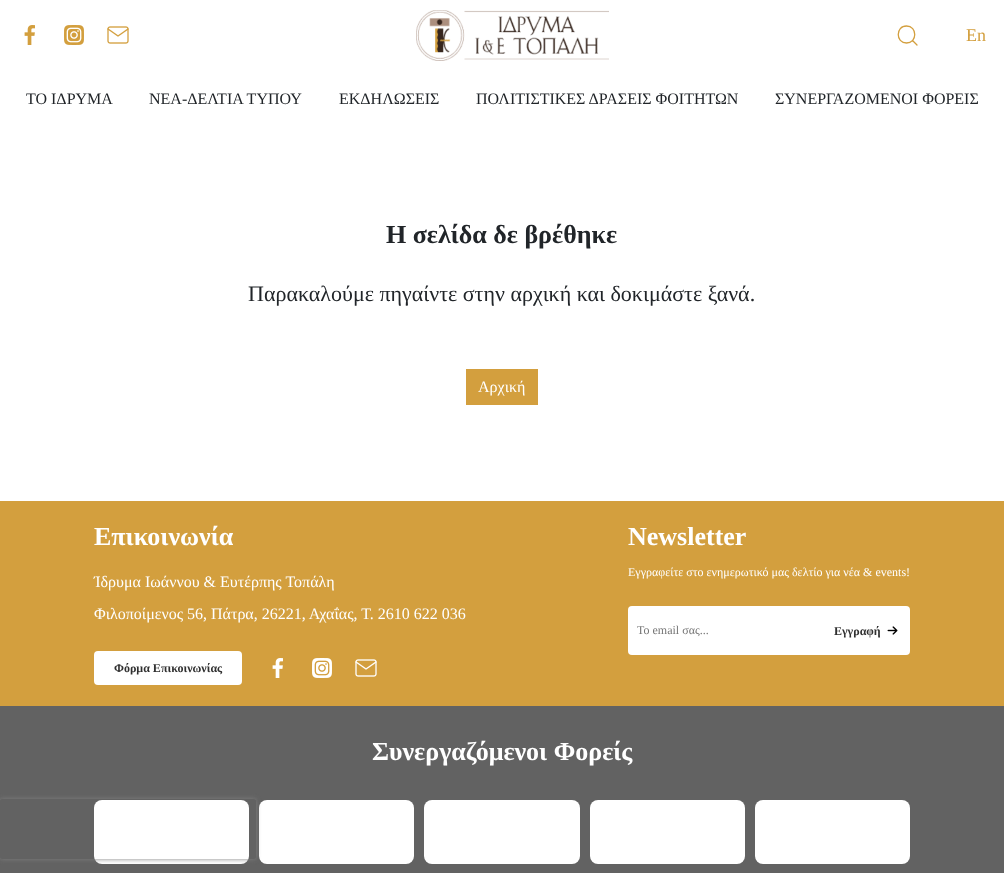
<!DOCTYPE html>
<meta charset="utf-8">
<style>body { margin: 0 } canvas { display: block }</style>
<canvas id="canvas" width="1004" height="873"></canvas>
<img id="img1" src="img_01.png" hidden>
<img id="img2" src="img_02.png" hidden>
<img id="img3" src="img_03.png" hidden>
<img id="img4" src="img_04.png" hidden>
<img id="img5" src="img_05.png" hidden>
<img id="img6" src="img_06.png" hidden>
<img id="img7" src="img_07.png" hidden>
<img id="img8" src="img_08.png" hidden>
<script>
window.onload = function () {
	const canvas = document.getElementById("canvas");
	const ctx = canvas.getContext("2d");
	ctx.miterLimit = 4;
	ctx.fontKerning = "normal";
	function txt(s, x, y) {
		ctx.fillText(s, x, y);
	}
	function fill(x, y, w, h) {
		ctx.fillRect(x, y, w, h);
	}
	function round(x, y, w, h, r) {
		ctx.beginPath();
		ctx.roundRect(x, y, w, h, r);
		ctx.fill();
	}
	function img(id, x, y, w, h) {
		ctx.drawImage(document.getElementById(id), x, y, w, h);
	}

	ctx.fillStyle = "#FFFFFF";
	fill(0, 0, 1004, 873);
	img("img1", 24, 25, 11, 20);
	img("img2", 64, 25, 20, 20);
	img("img3", 107, 26, 22, 18);
	img("img4", 416, 10, 193, 51);
	ctx.beginPath();
	ctx.moveTo(906.5, 43);
	ctx.bezierCurveTo(917.5, 43, 917.5, 26, 906.5, 26);
	ctx.bezierCurveTo(895.5, 26, 895.5, 43, 906.5, 43);
	ctx.closePath();
	ctx.moveTo(917, 45);
	ctx.lineTo(912.5, 40.5);
	ctx.strokeStyle = "#D39F3E";
	ctx.lineWidth = 1.3;
	ctx.lineCap = "round";
	ctx.lineJoin = "round";
	ctx.stroke();
	ctx.fillStyle = "#D39F3E";
	fill(466, 369, 72, 36);
	fill(0, 501, 1004, 205);
	ctx.fillStyle = "#FFFFFF";
	round(94, 651, 148, 34, 4);
	img("img5", 272, 658, 11, 20);
	img("img6", 312, 658, 20, 20);
	img("img7", 355, 659, 22, 18);
	round(628, 606, 282, 49, 4);
	img("img8", 887, 626, 11, 9);
	ctx.fillStyle = "#626262";
	fill(0, 706, 1004, 167);
	ctx.fillStyle = "#FFFFFF";
	round(94, 800, 155, 64, 8);
	round(259, 800, 155, 64, 8);
	round(424, 800, 156, 64, 8);
	round(590, 800, 155, 64, 8);
	round(755, 800, 155, 64, 8);
	ctx.save();
	ctx.beginPath();
	ctx.moveTo(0, 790);
	ctx.lineTo(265, 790);
	ctx.lineTo(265, 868);
	ctx.lineTo(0, 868);
	ctx.closePath();
	ctx.moveTo(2, 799);
	ctx.lineTo(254, 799);
	ctx.bezierCurveTo(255, 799, 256, 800, 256, 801);
	ctx.lineTo(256, 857);
	ctx.bezierCurveTo(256, 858, 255, 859, 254, 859);
	ctx.lineTo(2, 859);
	ctx.bezierCurveTo(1, 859, 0, 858, 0, 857);
	ctx.lineTo(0, 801);
	ctx.bezierCurveTo(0, 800, 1, 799, 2, 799);
	ctx.closePath();
	ctx.clip("evenodd");
	ctx.fillStyle = "#808080";
	ctx.filter = "blur(2.5px)";
	ctx.beginPath();
	ctx.roundRect(0, 799, 256, 60, 2);
	ctx.fill();
	ctx.filter = "none";
	ctx.restore();
	ctx.font = "18px Tinos";
	ctx.fillStyle = "#D39F3E";
	txt("En", 966, 41);
	ctx.font = "16px Tinos";
	ctx.fillStyle = "#212529";
	txt("ΤΟ ΙΔΡΥΜΑ", 26, 104);
	txt("ΝΕΑ-ΔΕΛΤΙΑ ΤΥΠΟΥ", 149, 104);
	txt("ΕΚΔΗΛΩΣΕΙΣ", 339, 104);
	txt("ΠΟΛΙΤΙΣΤΙΚΕΣ ΔΡΑΣΕΙΣ ΦΟΙΤΗΤΩΝ", 476, 104);
	txt("ΣΥΝΕΡΓΑΖΟΜΕΝΟΙ ΦΟΡΕΙΣ", 775, 104);
	ctx.font = "bold 26px Tinos";
	txt("Η σελίδα δε βρέθηκε", 386, 243);
	ctx.font = "22px Tinos";
	txt("Παρακαλούμε πηγαίντε στην αρχική και δοκιμάστε ξανά.", 248, 301);
	ctx.font = "16px Tinos";
	ctx.fillStyle = "#FFFFFF";
	txt("Αρχική", 478, 392);
	ctx.font = "bold 26px Tinos";
	txt("Επικοινωνία", 94, 545);
	ctx.font = "16px Liberation Serif";
	txt("Ίδρυμα Ιωάννου & Ευτέρπης Τοπάλη", 94, 587);
	txt("Φιλοποίμενος 56, Πάτρα, 26221, Αχαΐας, Τ. 2610 622 036", 94, 619);
	ctx.font = "bold 12px Tinos";
	ctx.fillStyle = "#303030";
	txt("Φόρμα Επικοινωνίας", 114, 672);
	ctx.font = "bold 26px Tinos";
	ctx.fillStyle = "#FFFFFF";
	txt("Newsletter", 628, 545);
	ctx.font = "12px Tinos";
	txt("Εγγραφείτε στο ενημερωτικό μας δελτίο για νέα & events!", 628, 576);
	ctx.fillStyle = "#757575";
	txt("Το email σας...", 637, 634);
	ctx.font = "bold 12px Tinos";
	ctx.fillStyle = "#303030";
	txt("Εγγραφή", 834, 635);
	ctx.font = "bold 26px Tinos";
	ctx.fillStyle = "#FFFFFF";
	txt("Συνεργαζόμενοι Φορείς", 372, 760);
};
</script>
